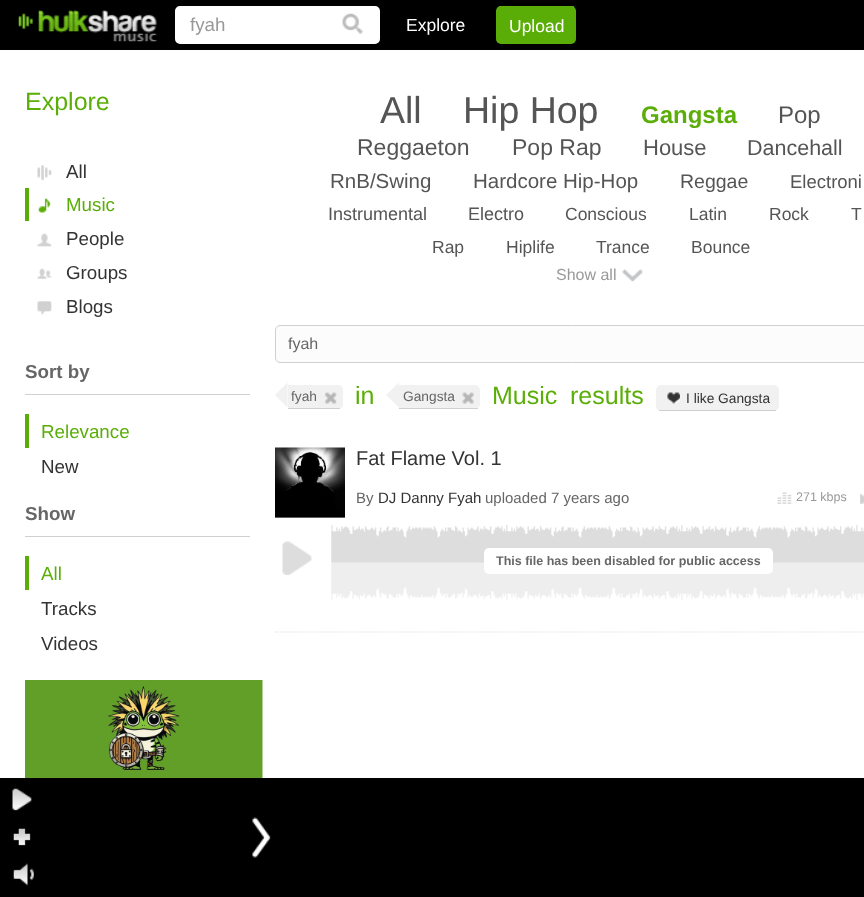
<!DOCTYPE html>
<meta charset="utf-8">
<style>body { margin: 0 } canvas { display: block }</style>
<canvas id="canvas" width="864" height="897"></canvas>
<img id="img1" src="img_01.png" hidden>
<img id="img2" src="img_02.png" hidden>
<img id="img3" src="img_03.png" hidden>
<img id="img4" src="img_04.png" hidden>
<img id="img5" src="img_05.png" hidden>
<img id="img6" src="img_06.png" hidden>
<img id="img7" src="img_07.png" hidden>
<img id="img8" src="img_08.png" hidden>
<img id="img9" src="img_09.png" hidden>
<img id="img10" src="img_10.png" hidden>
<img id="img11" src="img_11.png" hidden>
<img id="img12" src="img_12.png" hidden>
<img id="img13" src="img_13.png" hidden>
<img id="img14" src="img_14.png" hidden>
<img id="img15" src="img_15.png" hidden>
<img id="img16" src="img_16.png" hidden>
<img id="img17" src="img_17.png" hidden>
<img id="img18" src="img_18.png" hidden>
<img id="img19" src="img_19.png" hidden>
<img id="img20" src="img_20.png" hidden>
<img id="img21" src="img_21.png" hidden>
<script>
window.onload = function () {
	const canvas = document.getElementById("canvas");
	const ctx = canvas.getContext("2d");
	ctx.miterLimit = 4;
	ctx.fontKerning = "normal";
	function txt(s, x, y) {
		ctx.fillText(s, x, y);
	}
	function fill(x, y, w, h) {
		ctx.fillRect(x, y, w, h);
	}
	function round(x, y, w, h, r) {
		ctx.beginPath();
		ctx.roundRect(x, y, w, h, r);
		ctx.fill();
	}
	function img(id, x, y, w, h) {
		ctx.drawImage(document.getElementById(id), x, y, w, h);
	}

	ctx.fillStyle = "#FFFFFF";
	fill(0, 0, 864, 897);
	ctx.fillStyle = "#000000";
	fill(0, 0, 864, 50);
	img("img1", 18, 10, 139, 32);
	ctx.fillStyle = "#FFFFFF";
	ctx.beginPath();
	ctx.roundRect(176.5, 7.5, 202, 35, 3.5);
	ctx.fill();
	ctx.strokeStyle = "#FFFFFF";
	ctx.lineWidth = 3;
	ctx.stroke();
	img("img2", 342, 13, 21, 21);
	ctx.fillStyle = "#5AAD07";
	round(496, 6, 80, 38, 5);
	fill(499, 6, 75, 1);
	img("img3", 37, 165, 15, 16);
	img("img4", 38, 198, 13, 15);
	fill(25, 188, 4, 33);
	img("img5", 37, 233, 15, 14);
	img("img6", 37, 268, 15, 11);
	img("img7", 37, 301, 15, 14);
	ctx.fillStyle = "#D0D0D0";
	fill(25, 394, 225, 1);
	ctx.fillStyle = "#5AAD07";
	fill(25, 414, 4, 34);
	ctx.fillStyle = "#D0D0D0";
	fill(25, 536, 225, 1);
	ctx.fillStyle = "#5AAD07";
	fill(25, 556, 4, 34);
	img("img8", 25, 680, 238, 98);
	img("img9", 622, 268, 21, 14);
	ctx.fillStyle = "#FCFCFC";
	ctx.beginPath();
	ctx.roundRect(275.5, 325.5, 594, 37, 4.5);
	ctx.fill();
	ctx.strokeStyle = "#D2CFCD";
	ctx.lineWidth = 1;
	ctx.stroke();
	ctx.fillStyle = "#F1F1F1";
	ctx.beginPath();
	ctx.roundRect(288, 385, 55, 24, [0, 5, 5, 0]);
	ctx.fill();
	ctx.fillStyle = "#D0D0D0";
	fill(288, 408, 52, 1);
	ctx.fillStyle = "#F1F1F1";
	ctx.beginPath();
	ctx.moveTo(287.5, 382.5);
	ctx.lineTo(287.5, 407.5);
	ctx.lineTo(275, 395);
	ctx.closePath();
	ctx.fill();
	img("img10", 325, 392, 12, 12);
	ctx.beginPath();
	ctx.roundRect(399, 385, 81, 24, [0, 5, 5, 0]);
	ctx.fill();
	ctx.fillStyle = "#D0D0D0";
	fill(399, 408, 79, 1);
	ctx.fillStyle = "#F1F1F1";
	ctx.beginPath();
	ctx.moveTo(399, 382.5);
	ctx.lineTo(399, 407.5);
	ctx.lineTo(386, 395);
	ctx.closePath();
	ctx.fill();
	img("img11", 462, 392, 12, 12);
	round(656, 385, 123, 26, 5);
	ctx.fillStyle = "#D0D0D0";
	fill(659, 410, 117, 1);
	img("img12", 667, 392, 13, 12);
	ctx.beginPath();
	ctx.moveTo(275, 632);
	ctx.lineTo(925, 632);
	ctx.strokeStyle = "#DCDCDC";
	ctx.lineWidth = 1.2;
	ctx.setLineDash([1.25, 1.25]);
	ctx.stroke();
	ctx.fillStyle = "#BCBCBC";
	fill(275, 517, 70, 1);
	img("img13", 275, 447, 70, 71);
	img("img14", 777, 492, 15, 12);
	img("img15", 860, 493, 4, 11);
	img("img16", 282, 541, 30, 34);
	img("img17", 331, 525, 533, 75);
	ctx.fillStyle = "#FFFFFF";
	round(484, 548, 289, 26, 5);
	ctx.fillStyle = "#000000";
	fill(0, 778, 864, 119);
	img("img18", 12, 788, 20, 23);
	img("img19", 13, 828, 18, 18);
	img("img20", 13, 863, 21, 23);
	img("img21", 252, 817, 19, 41);
	ctx.font = "18.75px Liberation Sans";
	ctx.fillStyle = "#999999";
	txt("fyah", 190, 31);
	ctx.font = "17.5px Liberation Sans";
	ctx.fillStyle = "#FFFFFF";
	txt("Explore", 406, 31);
	txt("Upload", 509, 32);
	ctx.font = "25px Liberation Sans";
	ctx.fillStyle = "#5AAE07";
	txt("Explore", 25, 110);
	ctx.font = "18.75px Liberation Sans";
	ctx.fillStyle = "#333333";
	txt("All", 66, 178);
	ctx.fillStyle = "#5AAE07";
	txt("Music", 66, 211);
	ctx.fillStyle = "#333333";
	txt("People", 66, 245);
	txt("Groups", 66, 279);
	txt("Blogs", 66, 313);
	ctx.font = "bold 18.75px Liberation Sans";
	ctx.fillStyle = "#666666";
	txt("Sort by", 25, 378);
	ctx.font = "18.75px Liberation Sans";
	ctx.fillStyle = "#5AAE07";
	txt("Relevance", 41, 438);
	ctx.fillStyle = "#333333";
	txt("New", 41, 473);
	ctx.font = "bold 18.75px Liberation Sans";
	ctx.fillStyle = "#666666";
	txt("Show", 25, 520);
	ctx.font = "18.75px Liberation Sans";
	ctx.fillStyle = "#5AAE07";
	txt("All", 41, 580);
	ctx.fillStyle = "#333333";
	txt("Tracks", 41, 615);
	txt("Videos", 41, 650);
	ctx.font = "37.5px Liberation Sans";
	ctx.fillStyle = "#555555";
	txt("All", 380, 123);
	txt("Hip Hop", 463, 123);
	ctx.font = "bold 24px Liberation Sans";
	ctx.fillStyle = "#5AAE07";
	txt("Gangsta", 641, 123);
	ctx.font = "24px Liberation Sans";
	ctx.fillStyle = "#555555";
	txt("Pop", 778, 123);
	ctx.font = "23px Liberation Sans";
	txt("Reggaeton", 357, 155);
	txt("Pop Rap", 512, 155);
	ctx.font = "22px Liberation Sans";
	txt("House", 643, 155);
	ctx.font = "21.5px Liberation Sans";
	txt("Dancehall", 747, 155);
	ctx.font = "20.5px Liberation Sans";
	txt("RnB/Swing", 330, 188);
	txt("Hardcore Hip-Hop", 473, 188);
	ctx.font = "19.5px Liberation Sans";
	txt("Reggae", 680, 188);
	ctx.font = "18.5px Liberation Sans";
	txt("Electroni", 790, 188);
	ctx.font = "18px Liberation Sans";
	txt("Instrumental", 328, 220);
	txt("Electro", 468, 220);
	ctx.font = "17.5px Liberation Sans";
	txt("Conscious", 565, 220);
	txt("Latin", 689, 220);
	txt("Rock", 769, 220);
	txt("T", 851, 220);
	txt("Rap", 432, 253);
	txt("Hiplife", 506, 253);
	txt("Trance", 596, 253);
	txt("Bounce", 691, 253);
	ctx.font = "16px Liberation Sans";
	ctx.fillStyle = "#999999";
	txt("Show all", 556, 280);
	ctx.fillStyle = "#666666";
	txt("fyah", 288, 349);
	ctx.font = "13.75px Liberation Sans";
	txt("fyah", 291, 401);
	ctx.font = "25px Liberation Sans";
	ctx.fillStyle = "#5AAE07";
	txt("in", 355, 404);
	ctx.font = "13.75px Liberation Sans";
	ctx.fillStyle = "#666666";
	txt("Gangsta", 403, 401);
	ctx.font = "25px Liberation Sans";
	ctx.fillStyle = "#5AAE07";
	txt("Music", 492, 404);
	txt("results", 570, 404);
	ctx.font = "13.75px Liberation Sans";
	ctx.fillStyle = "#333333";
	txt("I like Gangsta", 686, 403);
	ctx.font = "20px Liberation Sans";
	txt("Fat Flame Vol. 1", 356, 465);
	ctx.font = "15px Liberation Sans";
	ctx.fillStyle = "#666666";
	txt("By", 356, 503);
	ctx.fillStyle = "#333333";
	txt("DJ Danny Fyah", 378, 503);
	ctx.fillStyle = "#666666";
	txt("uploaded 7 years ago", 485, 503);
	ctx.font = "12.5px Liberation Sans";
	ctx.fillStyle = "#999999";
	txt("271 kbps", 796, 501);
	ctx.font = "bold 12.5px Liberation Sans";
	ctx.fillStyle = "#666666";
	txt("This file has been disabled for public access", 496, 565);
};
</script>
